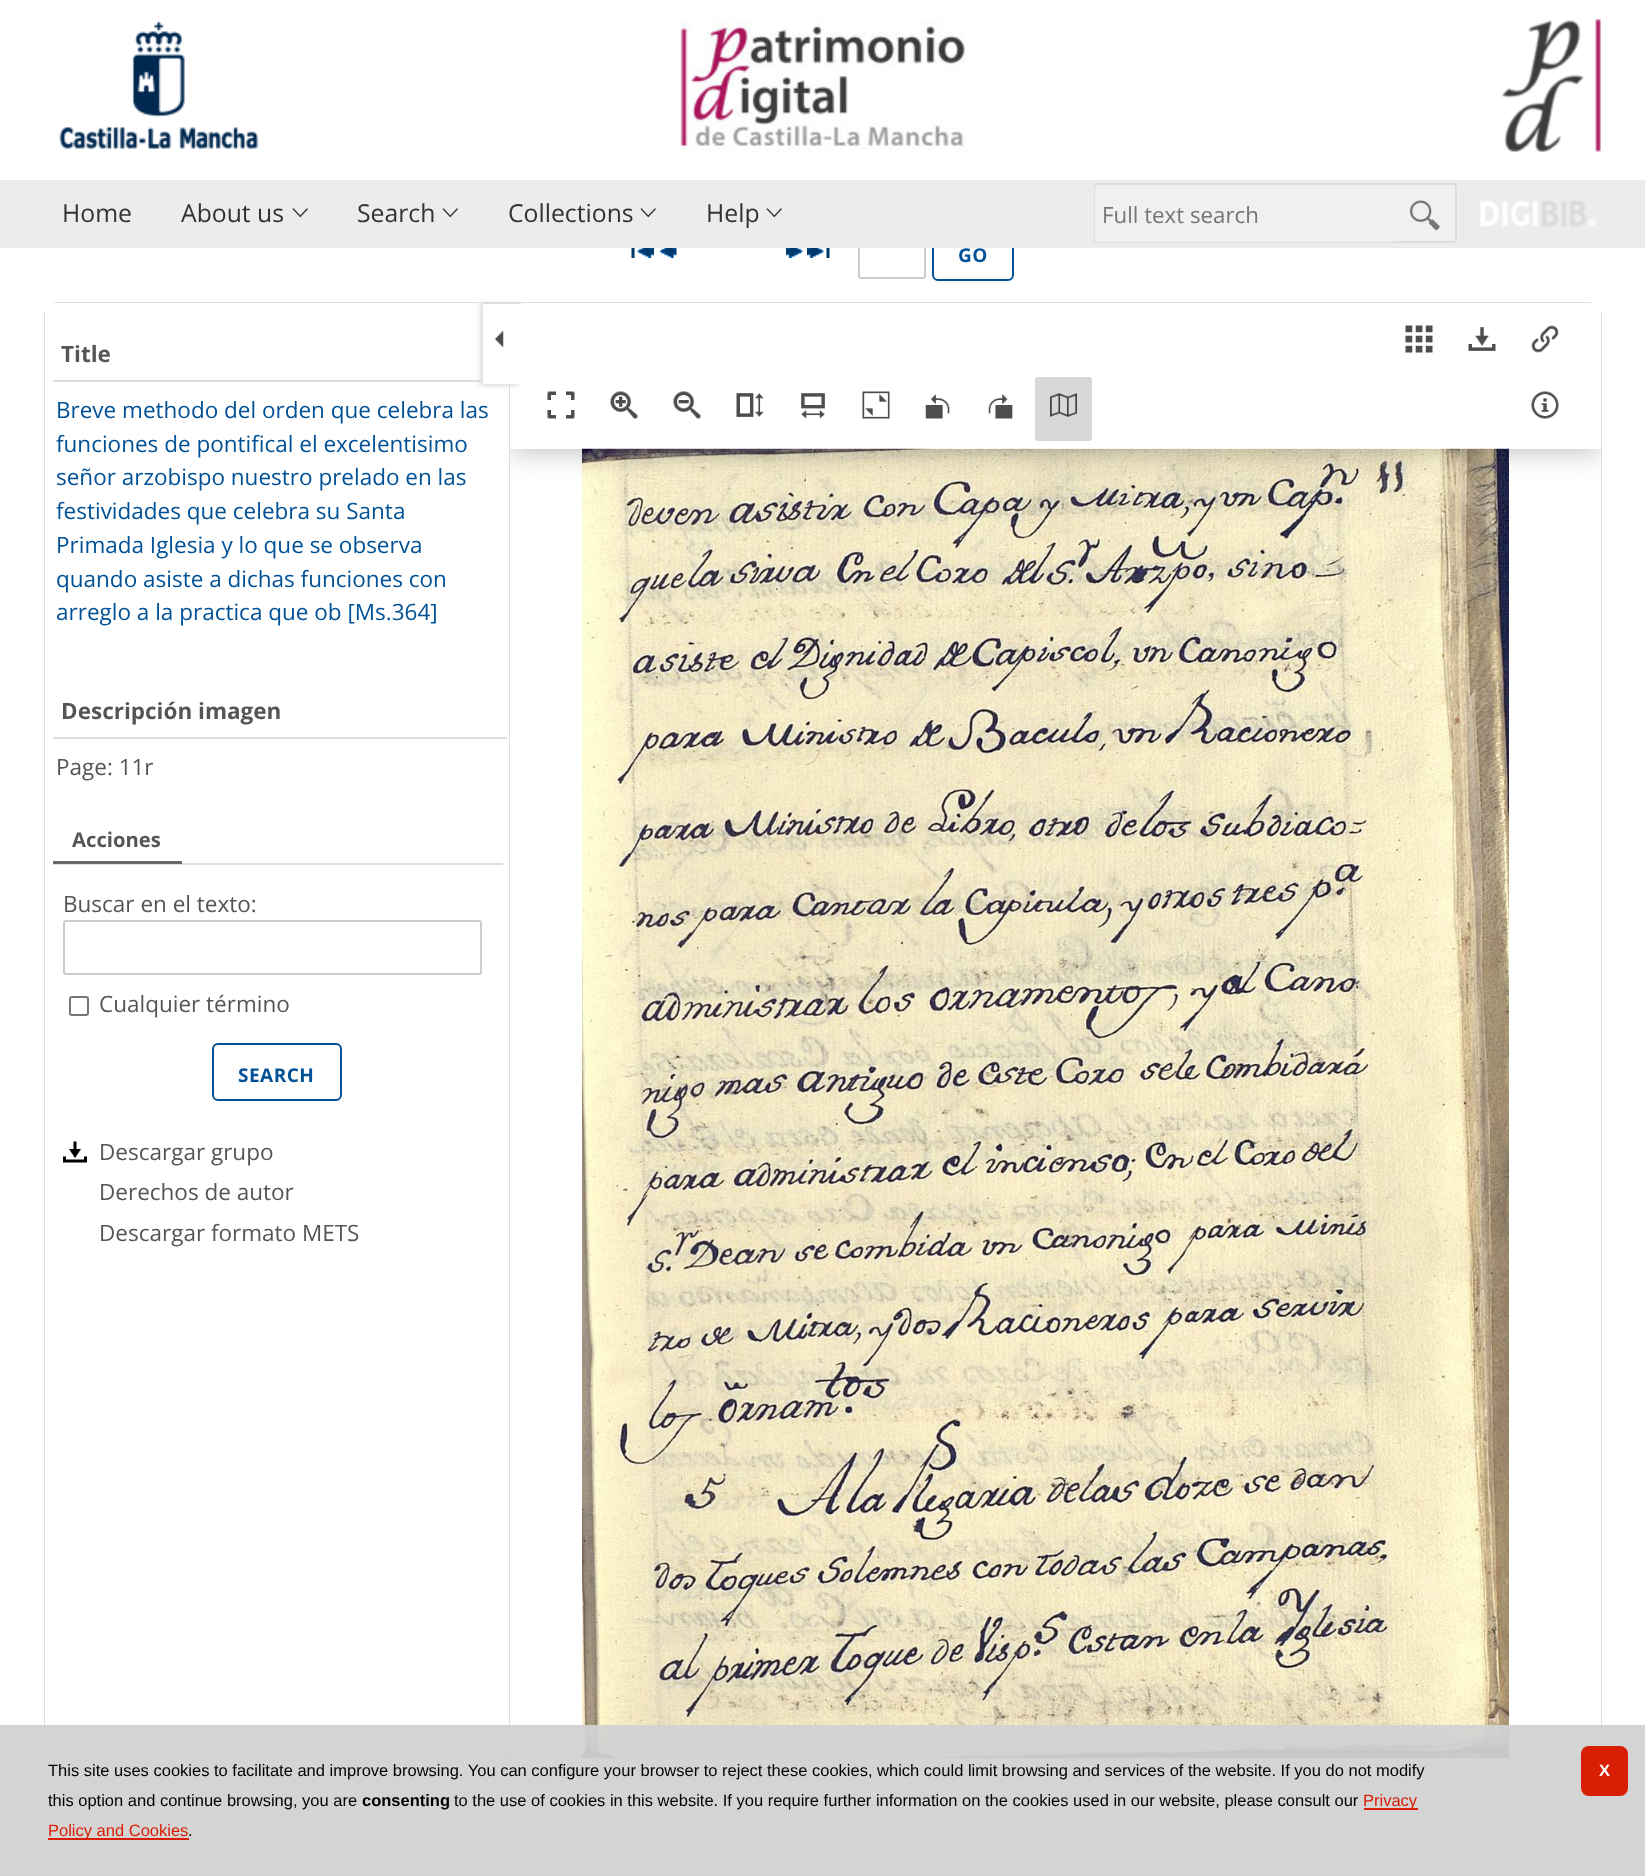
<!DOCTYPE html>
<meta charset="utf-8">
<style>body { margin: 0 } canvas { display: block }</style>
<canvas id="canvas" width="1645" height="1876"></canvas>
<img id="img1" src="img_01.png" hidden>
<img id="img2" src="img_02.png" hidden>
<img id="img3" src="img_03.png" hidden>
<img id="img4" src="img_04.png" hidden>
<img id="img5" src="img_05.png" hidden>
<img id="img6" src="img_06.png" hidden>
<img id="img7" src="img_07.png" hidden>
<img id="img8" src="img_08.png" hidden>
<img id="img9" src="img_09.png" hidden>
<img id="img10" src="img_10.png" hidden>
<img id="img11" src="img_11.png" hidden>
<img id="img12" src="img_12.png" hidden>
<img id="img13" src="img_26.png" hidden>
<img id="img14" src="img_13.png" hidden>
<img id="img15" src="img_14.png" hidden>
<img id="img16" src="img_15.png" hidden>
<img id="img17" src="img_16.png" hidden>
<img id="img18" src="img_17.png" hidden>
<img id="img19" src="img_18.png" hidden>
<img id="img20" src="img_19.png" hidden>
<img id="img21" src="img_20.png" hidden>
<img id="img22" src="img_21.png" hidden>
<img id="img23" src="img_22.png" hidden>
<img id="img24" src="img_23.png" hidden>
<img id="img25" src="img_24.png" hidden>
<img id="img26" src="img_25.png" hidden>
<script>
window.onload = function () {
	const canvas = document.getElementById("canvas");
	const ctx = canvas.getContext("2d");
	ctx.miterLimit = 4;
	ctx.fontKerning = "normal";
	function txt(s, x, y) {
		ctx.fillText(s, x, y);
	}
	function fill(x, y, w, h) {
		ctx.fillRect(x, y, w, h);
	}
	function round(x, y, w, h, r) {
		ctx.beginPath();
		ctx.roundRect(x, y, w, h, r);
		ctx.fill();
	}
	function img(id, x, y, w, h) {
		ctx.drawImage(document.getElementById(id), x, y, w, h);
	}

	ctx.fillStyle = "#FFFFFF";
	fill(0, 0, 1645, 1876);
	img("img1", 680, 19, 286, 132);
	img("img2", 59, 20, 200, 129);
	img("img3", 1501, 19, 100, 133);
	ctx.beginPath();
	ctx.roundRect(859, 225, 66, 53, 2);
	ctx.strokeStyle = "#CCCCCC";
	ctx.lineWidth = 2;
	ctx.stroke();
	ctx.beginPath();
	ctx.roundRect(933, 225, 80, 55, 5);
	ctx.strokeStyle = "#005196";
	ctx.stroke();
	ctx.fillStyle = "#ECECEC";
	fill(0, 180, 1645, 68);
	img("img4", 292, 208, 16, 10);
	img("img4", 442, 208, 16, 10);
	img("img4", 640, 208, 16, 10);
	img("img4", 766, 208, 16, 10);
	ctx.fillStyle = "#F0F0F0";
	ctx.beginPath();
	ctx.roundRect(1095, 184, 361, 58, 2);
	ctx.fill();
	ctx.strokeStyle = "#DDDDDD";
	ctx.stroke();
	round(1095, 185, 300, 57, 3);
	img("img5", 1410, 200, 30, 31);
	img("img6", 1480, 200, 116, 27);
	img("img7", 631, 248, 23, 10);
	img("img8", 660, 248, 17, 10);
	img("img9", 786, 248, 17, 10);
	img("img10", 807, 248, 23, 10);
	ctx.beginPath();
	ctx.roundRect(45, 303, 1556, 1456, 13);
	ctx.stroke();
	ctx.fillStyle = "#FFFFFF";
	fill(45, 303, 464, 1455);
	ctx.fillStyle = "#DDDDDD";
	fill(509, 384, 1, 1374);
	fill(53, 380, 430, 2);
	fill(53, 737, 454, 2);
	fill(53, 863, 450, 2);
	ctx.fillStyle = "#696969";
	fill(53, 861, 129, 3);
	ctx.beginPath();
	ctx.roundRect(64, 921, 417, 53, 2);
	ctx.strokeStyle = "#CCCCCC";
	ctx.stroke();
	ctx.beginPath();
	ctx.roundRect(70, 997, 18, 18, 2);
	ctx.strokeStyle = "#767676";
	ctx.stroke();
	ctx.beginPath();
	ctx.roundRect(213, 1044, 128, 56, 5);
	ctx.strokeStyle = "#005196";
	ctx.stroke();
	img("img11", 63, 1141, 24, 22);
	ctx.fillStyle = "#FFFFFF";
	fill(512, 303, 1089, 1455);
	ctx.fillStyle = "#DDDDDD";
	ctx.filter = "blur(2px)";
	ctx.beginPath();
	ctx.rect(480, 303, 38, 83);
	ctx.fill();
	ctx.filter = "none";
	ctx.fillStyle = "#FFFFFF";
	fill(483, 304, 38, 80);
	ctx.fillStyle = "#DDDDDD";
	fill(483, 303, 38, 1);
	img("img12", 494, 330, 10, 18);
	img("img13", 582, 448, 927, 1310);
	ctx.save();
	ctx.beginPath();
	ctx.rect(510, 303, 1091, 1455);
	ctx.clip();
	ctx.beginPath();
	ctx.moveTo(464, 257);
	ctx.lineTo(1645, 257);
	ctx.lineTo(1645, 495);
	ctx.lineTo(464, 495);
	ctx.closePath();
	ctx.moveTo(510, 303);
	ctx.lineTo(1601, 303);
	ctx.lineTo(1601, 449);
	ctx.lineTo(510, 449);
	ctx.closePath();
	ctx.clip("evenodd");
	ctx.fillStyle = "rgba(0, 0, 0, 0.3)";
	ctx.filter = "blur(15px)";
	ctx.beginPath();
	ctx.rect(510, 303, 1091, 146);
	ctx.fill();
	ctx.filter = "none";
	ctx.restore();
	img("img14", 547, 391, 28, 28);
	img("img15", 610, 391, 28, 28);
	img("img16", 673, 391, 28, 28);
	img("img17", 736, 393, 28, 24);
	img("img18", 801, 393, 24, 26);
	img("img19", 862, 391, 28, 28);
	img("img20", 925, 394, 25, 25);
	img("img21", 988, 394, 25, 25);
	ctx.fillStyle = "#D8D8D8";
	round(1035, 377, 57, 64, 3);
	img("img22", 1050, 393, 27, 24);
	img("img23", 1405, 325, 28, 28);
	img("img24", 1468, 327, 28, 24);
	img("img25", 1531, 325, 28, 28);
	img("img26", 1531, 391, 28, 28);
	ctx.fillStyle = "rgba(210, 210, 210, 0.95)";
	fill(0, 1725, 1645, 151);
	ctx.beginPath();
	ctx.moveTo(0, 1876);
	ctx.lineTo(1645.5, 1876);
	ctx.strokeStyle = "#CCCCCC";
	ctx.lineWidth = 1.5;
	ctx.setLineDash([1.5, 1.5]);
	ctx.stroke();
	ctx.fillStyle = "#D81E05";
	fill(1364, 1808, 54, 2);
	fill(48, 1838, 141, 2);
	round(1581, 1746, 47, 50, 8);
	ctx.font = "24.75px Open Sans";
	ctx.fillStyle = "#333333";
	txt("Home", 62, 222);
	txt("About us", 181, 222);
	txt("Search", 357, 222);
	txt("Collections", 508, 222);
	txt("Help", 706, 222);
	ctx.font = "22.25px Open Sans";
	ctx.fillStyle = "#757575";
	txt("Full text search", 1102, 223);
	ctx.letterSpacing = "0.5px";
	ctx.font = "bold 19px Open Sans";
	ctx.fillStyle = "#005196";
	txt("GO", 958, 262);
	ctx.letterSpacing = "0px";
	ctx.font = "bold 22.5px Open Sans";
	ctx.fillStyle = "#555555";
	txt("Title", 61, 362);
	ctx.font = "22.5px Open Sans";
	ctx.fillStyle = "#005196";
	txt("Breve methodo del orden que celebra las", 56, 418);
	txt("funciones de pontifical el excelentisimo", 56, 452);
	txt("señor arzobispo nuestro prelado en las", 56, 485);
	txt("festividades que celebra su Santa", 56, 519);
	txt("Primada Iglesia y lo que se observa", 56, 553);
	txt("quando asiste a dichas funciones con", 56, 587);
	txt("arreglo a la practica que ob [Ms.364]", 56, 620);
	ctx.font = "bold 22.5px Open Sans";
	ctx.fillStyle = "#555555";
	txt("Descripción imagen", 61, 719);
	ctx.font = "22.5px Open Sans";
	txt("Page: 11r", 56, 775);
	ctx.font = "bold 20.25px Open Sans";
	txt("Acciones", 72, 847);
	ctx.font = "22.5px Open Sans";
	txt("Buscar en el texto:", 63, 912);
	txt("Cualquier término", 99, 1012);
	ctx.letterSpacing = "0.5px";
	ctx.font = "bold 19px Open Sans";
	ctx.fillStyle = "#005196";
	txt("SEARCH", 238, 1082);
	ctx.letterSpacing = "0px";
	ctx.font = "22.5px Open Sans";
	ctx.fillStyle = "#555555";
	txt("Descargar grupo", 99, 1160);
	txt("Derechos de autor", 99, 1200);
	txt("Descargar formato METS", 99, 1241);
	ctx.font = "16.5px Liberation Sans";
	ctx.fillStyle = "#000000";
	txt("This site uses cookies to facilitate and improve browsing. You can configure your browser to reject these cookies, which could limit browsing and services of the website. If you do not modify", 48, 1776);
	txt("this option and continue browsing, you are", 48, 1806);
	ctx.font = "bold 16.5px Liberation Sans";
	txt("consenting", 362, 1806);
	ctx.font = "16.5px Liberation Sans";
	txt("to the use of cookies in this website. If you require further information on the cookies used in our website, please consult our", 454, 1806);
	ctx.fillStyle = "#D81E05";
	txt("Privacy", 1363, 1806);
	txt("Policy and Cookies", 48, 1836);
	ctx.fillStyle = "#000000";
	txt(".", 188, 1836);
	ctx.letterSpacing = "-1px";
	ctx.font = "bold 16.5px Liberation Sans";
	ctx.fillStyle = "#FFFFFF";
	txt("X", 1599, 1776);
};
</script>
